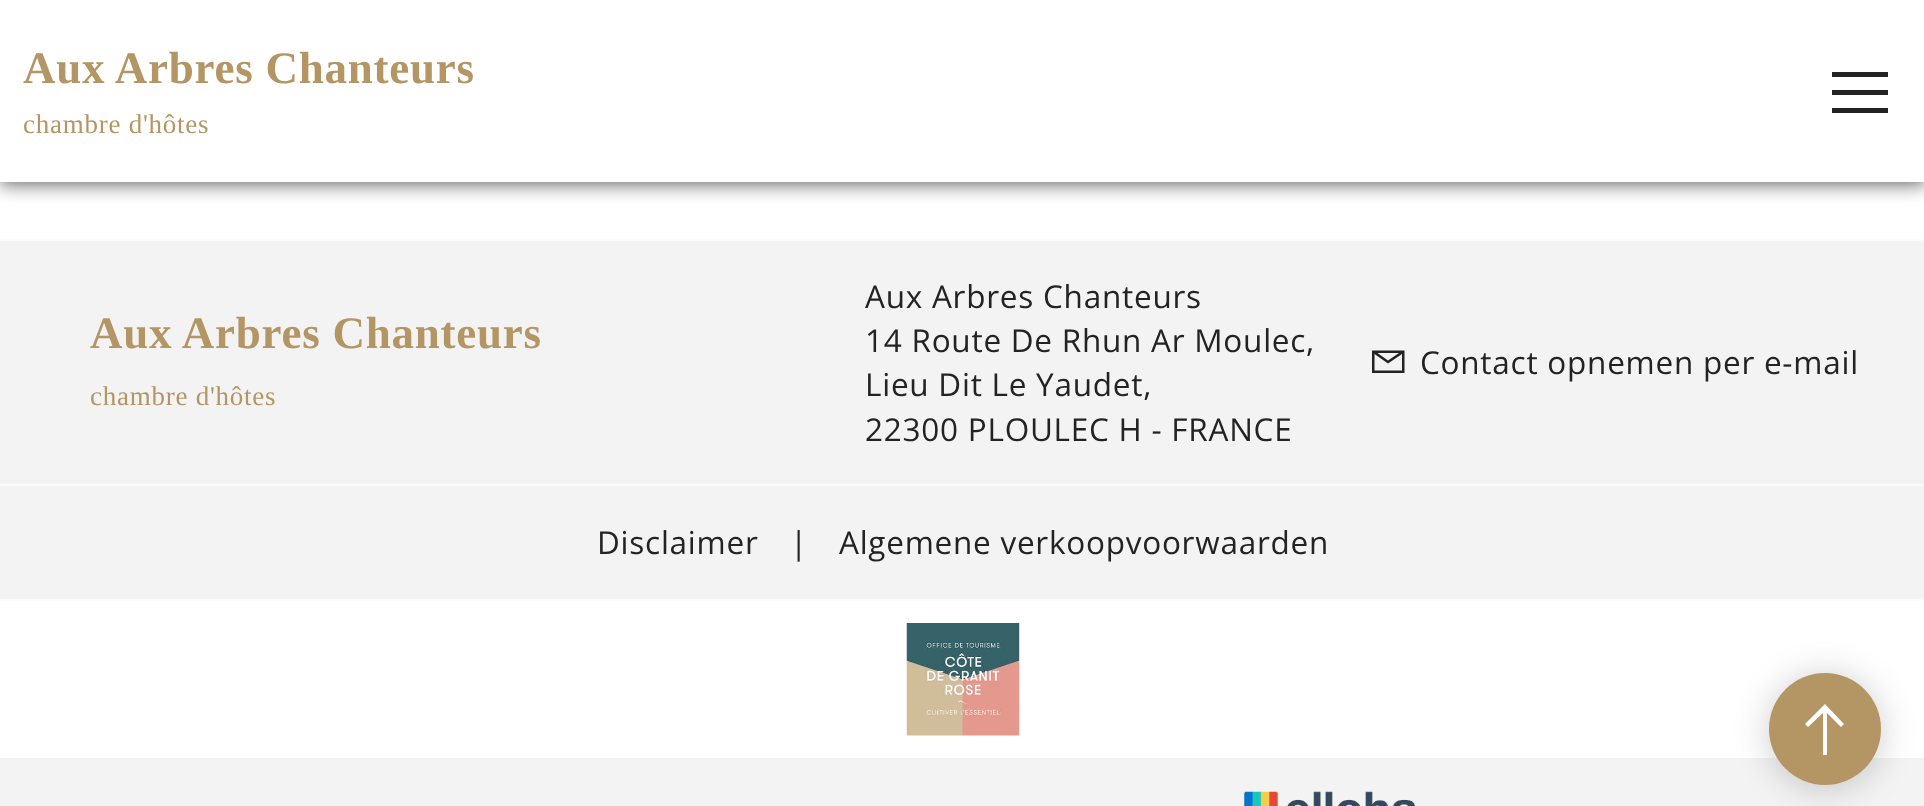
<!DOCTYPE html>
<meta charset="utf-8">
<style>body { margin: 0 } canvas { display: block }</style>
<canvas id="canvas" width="1924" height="806"></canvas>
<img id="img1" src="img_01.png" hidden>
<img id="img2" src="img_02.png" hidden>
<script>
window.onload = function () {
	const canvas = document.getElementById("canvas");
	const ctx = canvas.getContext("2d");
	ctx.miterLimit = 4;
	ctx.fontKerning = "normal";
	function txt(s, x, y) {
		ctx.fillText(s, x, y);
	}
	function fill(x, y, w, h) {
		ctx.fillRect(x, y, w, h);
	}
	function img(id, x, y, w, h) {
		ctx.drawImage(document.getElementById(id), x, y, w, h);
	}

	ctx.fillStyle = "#FFFFFF";
	fill(0, 0, 1924, 806);
	ctx.fillStyle = "rgba(0, 0, 0, 0.58)";
	ctx.filter = "blur(9px)";
	ctx.beginPath();
	ctx.rect(0, 2, 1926, 183);
	ctx.fill();
	ctx.filter = "none";
	ctx.fillStyle = "#FFFFFF";
	fill(0, 0, 1924, 182);
	ctx.fillStyle = "#232323";
	fill(1832, 90, 56, 5);
	fill(1832, 72, 56, 5);
	fill(1832, 108, 56, 5);
	ctx.fillStyle = "#F3F3F3";
	fill(0, 241, 1924, 243);
	ctx.fillStyle = "#FBFBFB";
	fill(0, 239, 1924, 2);
	fill(0, 484, 1924, 2);
	ctx.fillStyle = "#232323";
	ctx.beginPath();
	ctx.moveTo(1372, 350.5);
	ctx.lineTo(1372, 373);
	ctx.lineTo(1404.5, 373);
	ctx.lineTo(1404.5, 350.5);
	ctx.closePath();
	ctx.moveTo(1377.5, 353);
	ctx.lineTo(1399, 353);
	ctx.lineTo(1388, 360.5);
	ctx.closePath();
	ctx.moveTo(1374.5, 354);
	ctx.lineTo(1388, 363.5);
	ctx.lineTo(1402, 354);
	ctx.lineTo(1402, 370.5);
	ctx.lineTo(1374.5, 370.5);
	ctx.closePath();
	ctx.fill();
	ctx.fillStyle = "#F3F3F3";
	fill(0, 486, 1924, 113);
	ctx.fillStyle = "#FBFBFB";
	fill(0, 599, 1924, 2);
	img("img1", 906, 623, 114, 113);
	ctx.fillStyle = "#F3F3F3";
	fill(0, 758, 1924, 48);
	ctx.fillStyle = "rgba(0, 0, 0, 0.2)";
	ctx.filter = "blur(17px)";
	ctx.beginPath();
	ctx.roundRect(1769, 675, 112, 113, 56);
	ctx.fill();
	ctx.filter = "none";
	ctx.fillStyle = "#B49564";
	ctx.beginPath();
	ctx.arc(1825, 729, 56, 0, Math.PI * 2);
	ctx.fill();
	ctx.fillStyle = "#FFFFFF";
	ctx.beginPath();
	ctx.moveTo(1827, 755);
	ctx.lineTo(1827, 713);
	ctx.lineTo(1841, 727);
	ctx.lineTo(1844, 724);
	ctx.lineTo(1825, 704);
	ctx.lineTo(1805, 724);
	ctx.lineTo(1808, 727);
	ctx.lineTo(1823, 713);
	ctx.lineTo(1823, 755);
	ctx.closePath();
	ctx.fill();
	img("img2", 1244, 791, 172, 15);
	ctx.letterSpacing = "0.75px";
	ctx.font = "bold 45px Liberation Serif";
	ctx.fillStyle = "#B49564";
	txt("Aux Arbres Chanteurs", 23, 83);
	ctx.font = "27px Liberation Serif";
	txt("chambre d'hôtes", 23, 133);
	ctx.font = "bold 45px Liberation Serif";
	txt("Aux Arbres Chanteurs", 90, 348);
	ctx.font = "27px Liberation Serif";
	txt("chambre d'hôtes", 90, 405);
	ctx.font = "31.5px Open Sans";
	ctx.fillStyle = "#232323";
	txt("Aux Arbres Chanteurs", 865, 308);
	txt("14 Route De Rhun Ar Moulec,", 865, 352);
	txt("Lieu Dit Le Yaudet,", 865, 396);
	txt("22300 PLOULEC H - FRANCE", 865, 441);
	txt("Contact opnemen per e-mail", 1420, 374);
	txt("Disclaimer", 597, 554);
	txt("|", 790, 554);
	txt("Algemene verkoopvoorwaarden", 839, 554);
};
</script>
